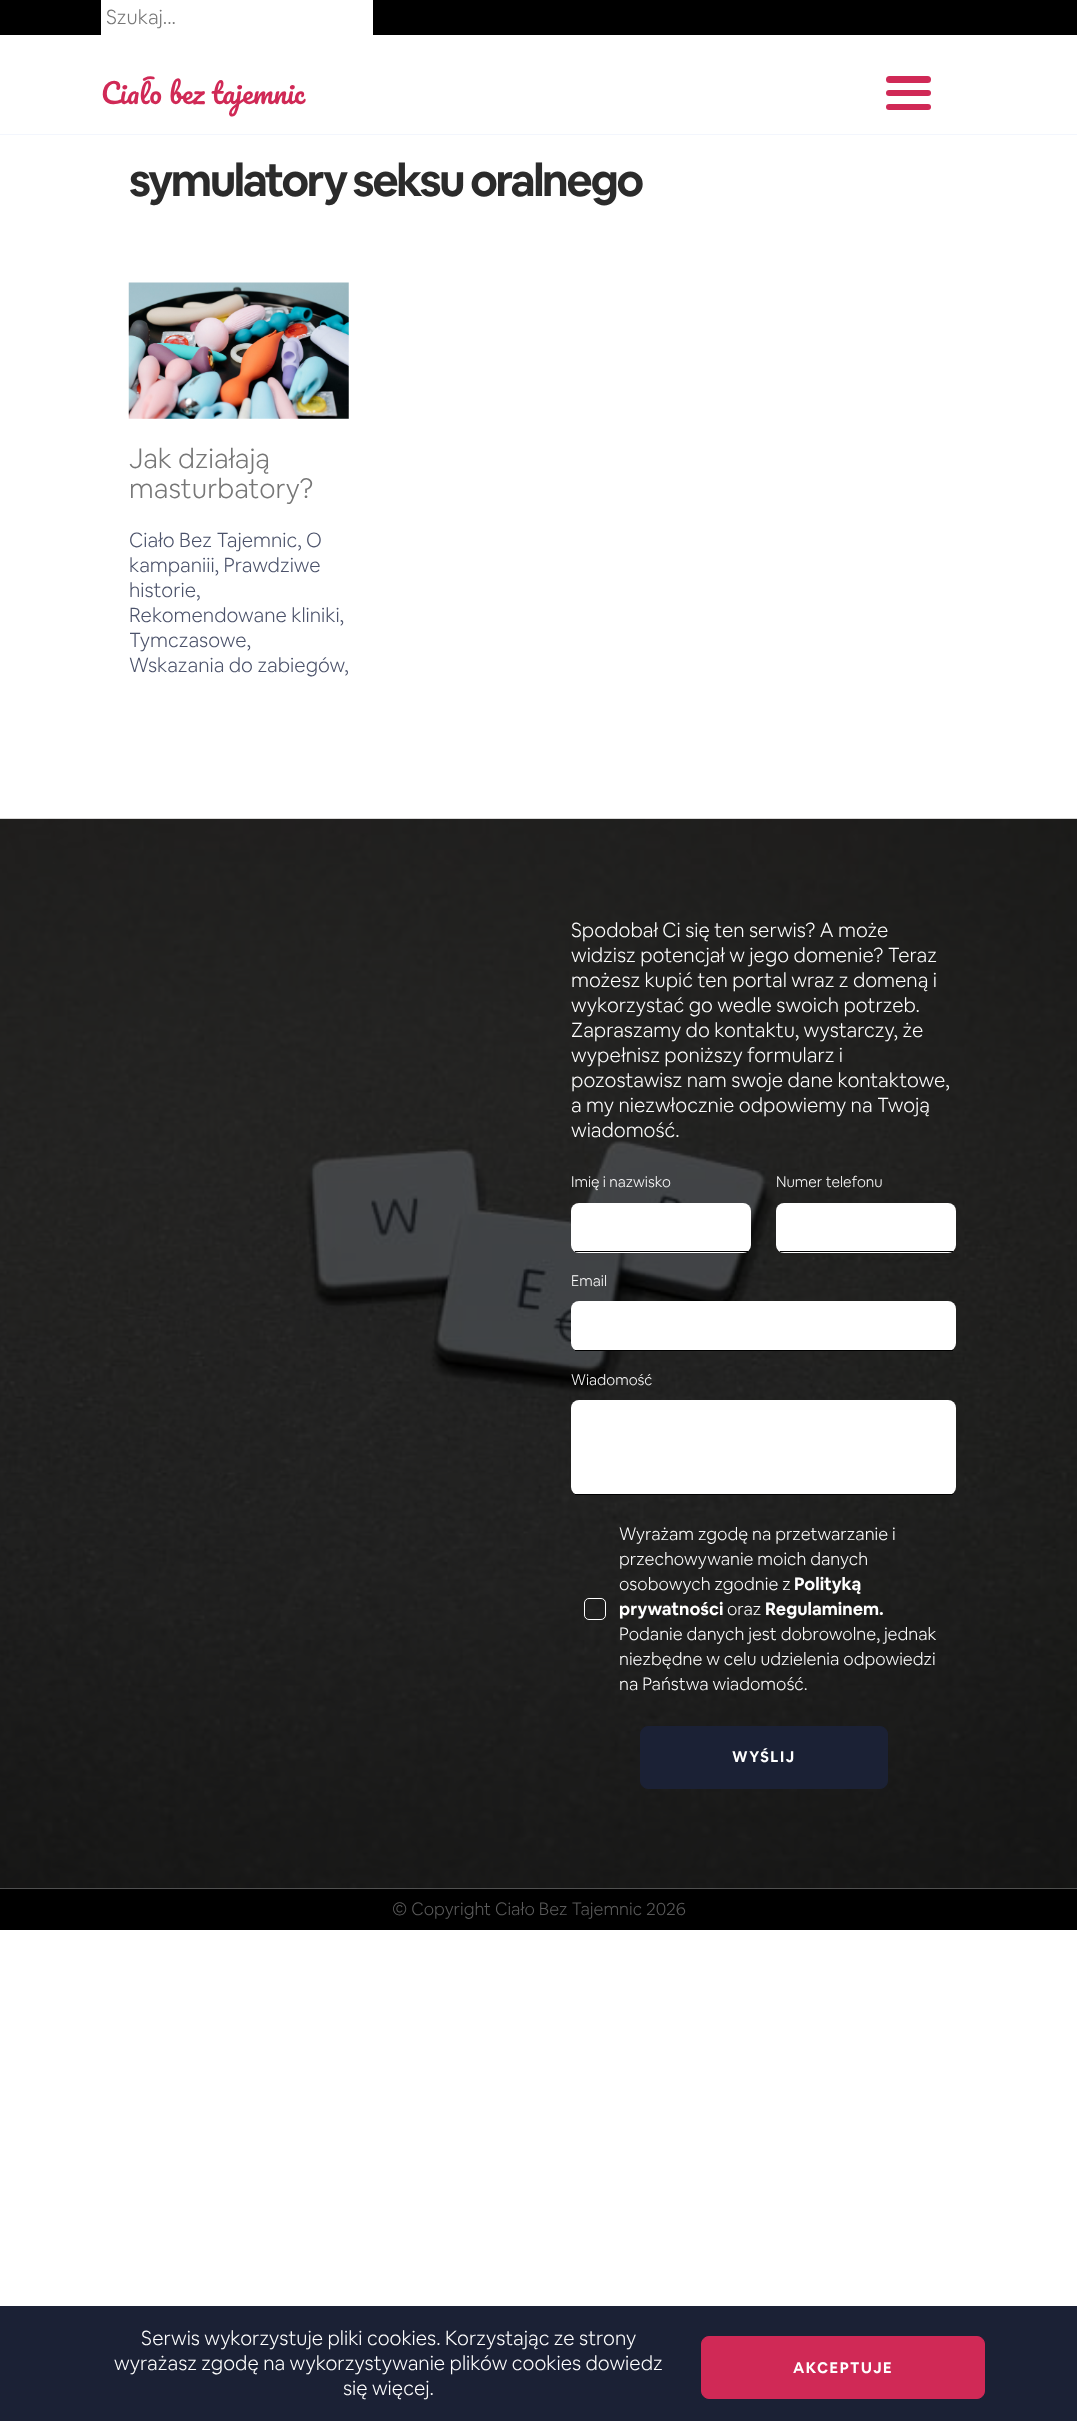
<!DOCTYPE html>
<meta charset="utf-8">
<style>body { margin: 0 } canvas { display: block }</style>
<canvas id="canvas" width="1077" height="2421"></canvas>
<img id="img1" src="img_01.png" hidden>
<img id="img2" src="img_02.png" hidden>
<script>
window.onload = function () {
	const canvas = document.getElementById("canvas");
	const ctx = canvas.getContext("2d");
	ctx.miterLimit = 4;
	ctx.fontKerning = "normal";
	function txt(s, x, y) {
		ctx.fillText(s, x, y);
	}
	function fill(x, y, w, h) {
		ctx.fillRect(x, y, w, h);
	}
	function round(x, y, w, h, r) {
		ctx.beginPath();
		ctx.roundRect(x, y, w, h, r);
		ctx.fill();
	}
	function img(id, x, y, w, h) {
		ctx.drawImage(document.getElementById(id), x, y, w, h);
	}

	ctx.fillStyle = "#FFFFFF";
	fill(0, 0, 1077, 2421);
	ctx.fillStyle = "#F3F6FD";
	fill(0, 134, 1077, 1);
	ctx.fillStyle = "#000000";
	fill(0, 0, 1077, 35);
	ctx.fillStyle = "#FFFFFF";
	fill(101, 0, 272, 35);
	ctx.fillStyle = "#D02956";
	ctx.beginPath();
	ctx.roundRect(886, 76, 23, 7, [3.5, 0, 0, 3.5]);
	ctx.fill();
	ctx.beginPath();
	ctx.roundRect(909, 76, 22, 7, [0, 3.5, 3.5, 0]);
	ctx.fill();
	ctx.beginPath();
	ctx.roundRect(886, 90, 23, 6, [3, 0, 0, 3]);
	ctx.fill();
	ctx.beginPath();
	ctx.roundRect(909, 90, 22, 6, [0, 3, 3, 0]);
	ctx.fill();
	ctx.beginPath();
	ctx.roundRect(886, 104, 23, 6, [3, 0, 0, 3]);
	ctx.fill();
	ctx.beginPath();
	ctx.roundRect(909, 104, 22, 6, [0, 3, 3, 0]);
	ctx.fill();
	img("img1", 128, 282, 221, 137);
	img("img2", 0, 818, 1077, 1071);
	ctx.fillStyle = "#FFFFFF";
	round(571, 1203, 180, 50, 8);
	ctx.fillStyle = "#000000";
	fill(575, 1251, 173, 1);
	ctx.fillStyle = "#FFFFFF";
	round(776, 1203, 180, 50, 8);
	ctx.fillStyle = "#000000";
	fill(780, 1251, 173, 1);
	ctx.fillStyle = "#FFFFFF";
	round(571, 1301, 385, 50, 8);
	ctx.fillStyle = "#000000";
	fill(575, 1350, 378, 1);
	ctx.fillStyle = "#FFFFFF";
	round(571, 1400, 385, 95, 8);
	ctx.fillStyle = "#000000";
	fill(575, 1494, 378, 1);
	ctx.beginPath();
	ctx.roundRect(584.5, 1598.5, 21, 21, 4.5);
	ctx.strokeStyle = "#FFFFFF";
	ctx.stroke();
	ctx.fillStyle = "#1B2135";
	ctx.beginPath();
	ctx.roundRect(640.5, 1726.5, 247, 62, 7.5);
	ctx.fill();
	ctx.strokeStyle = "#1B2135";
	ctx.stroke();
	ctx.fillStyle = "#000000";
	fill(0, 1889, 1077, 41);
	ctx.fillStyle = "#1B2135";
	fill(0, 2306, 1077, 115);
	ctx.fillStyle = "#D02956";
	ctx.beginPath();
	ctx.roundRect(701.5, 2336.5, 283, 62, 7.5);
	ctx.fill();
	ctx.strokeStyle = "#D02956";
	ctx.stroke();
	ctx.font = "300 20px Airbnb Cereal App";
	ctx.fillStyle = "#767676";
	txt("Szukaj...", 106, 24);
	ctx.font = "27.5px Pacifico";
	ctx.fillStyle = "#D02956";
	txt("Ciało bez tajemnic", 101, 104);
	ctx.letterSpacing = "-2.5px";
	ctx.font = "bold 45px Airbnb Cereal App";
	ctx.fillStyle = "#2B2B2B";
	txt("symulatory seksu oralnego", 129, 196);
	ctx.letterSpacing = "0px";
	ctx.font = "300 27.5px Airbnb Cereal App";
	ctx.fillStyle = "#767676";
	txt("Jak działają", 129, 468);
	txt("masturbatory?", 129, 498);
	ctx.font = "300 20px Airbnb Cereal App";
	ctx.fillStyle = "#4B526A";
	txt("Ciało Bez Tajemnic, O", 129, 547);
	txt("kampaniii, Prawdziwe", 129, 572);
	txt("historie,", 129, 597);
	txt("Rekomendowane kliniki,", 129, 622);
	txt("Tymczasowe,", 129, 647);
	txt("Wskazania do zabiegów,", 129, 672);
	ctx.fillStyle = "#FFFFFF";
	txt("Spodobał Ci się ten serwis? A może", 571, 937);
	txt("widzisz potencjał w jego domenie? Teraz", 571, 962);
	txt("możesz kupić ten portal wraz z domeną i", 571, 987);
	txt("wykorzystać go wedle swoich potrzeb.", 571, 1012);
	txt("Zapraszamy do kontaktu, wystarczy, że", 571, 1037);
	txt("wypełnisz poniższy formularz i", 571, 1062);
	txt("pozostawisz nam swoje dane kontaktowe,", 571, 1087);
	txt("a my niezwłocznie odpowiemy na Twoją", 571, 1112);
	txt("wiadomość.", 571, 1137);
	ctx.font = "300 15px Airbnb Cereal App";
	txt("Imię i nazwisko", 571, 1187);
	txt("Numer telefonu", 776, 1187);
	txt("Email", 571, 1286);
	txt("Wiadomość", 571, 1385);
	ctx.font = "300 17.5px Airbnb Cereal App";
	txt("Wyrażam zgodę na przetwarzanie i", 619, 1540);
	txt("przechowywanie moich danych", 619, 1565);
	txt("osobowych zgodnie z", 619, 1590);
	ctx.font = "bold 17.5px Airbnb Cereal App";
	txt("Polityką", 794, 1590);
	txt("prywatności", 619, 1615);
	ctx.font = "300 17.5px Airbnb Cereal App";
	txt("oraz", 727, 1615);
	ctx.font = "bold 17.5px Airbnb Cereal App";
	txt("Regulaminem.", 765, 1615);
	ctx.font = "300 17.5px Airbnb Cereal App";
	txt("Podanie danych jest dobrowolne, jednak", 619, 1640);
	txt("niezbędne w celu udzielenia odpowiedzi", 619, 1665);
	txt("na Państwa wiadomość.", 619, 1690);
	ctx.letterSpacing = "1.5px";
	ctx.font = "bold 15px Airbnb Cereal App";
	txt("WYŚLIJ", 732, 1762);
	ctx.letterSpacing = "0px";
	ctx.font = "300 17.5px Airbnb Cereal App";
	ctx.fillStyle = "#5B5B5B";
	txt("© Copyright Ciało Bez Tajemnic 2026", 392, 1915);
	ctx.font = "300 20px Airbnb Cereal App";
	ctx.fillStyle = "#FFFFFF";
	txt("Serwis wykorzystuje pliki cookies. Korzystając ze strony", 141, 2345);
	txt("wyrażasz zgodę na wykorzystywanie plików cookies dowiedz", 114, 2370);
	txt("się więcej.", 343, 2395);
	ctx.letterSpacing = "1.5px";
	ctx.font = "bold 15px Airbnb Cereal App";
	txt("AKCEPTUJE", 793, 2373);
};
</script>
